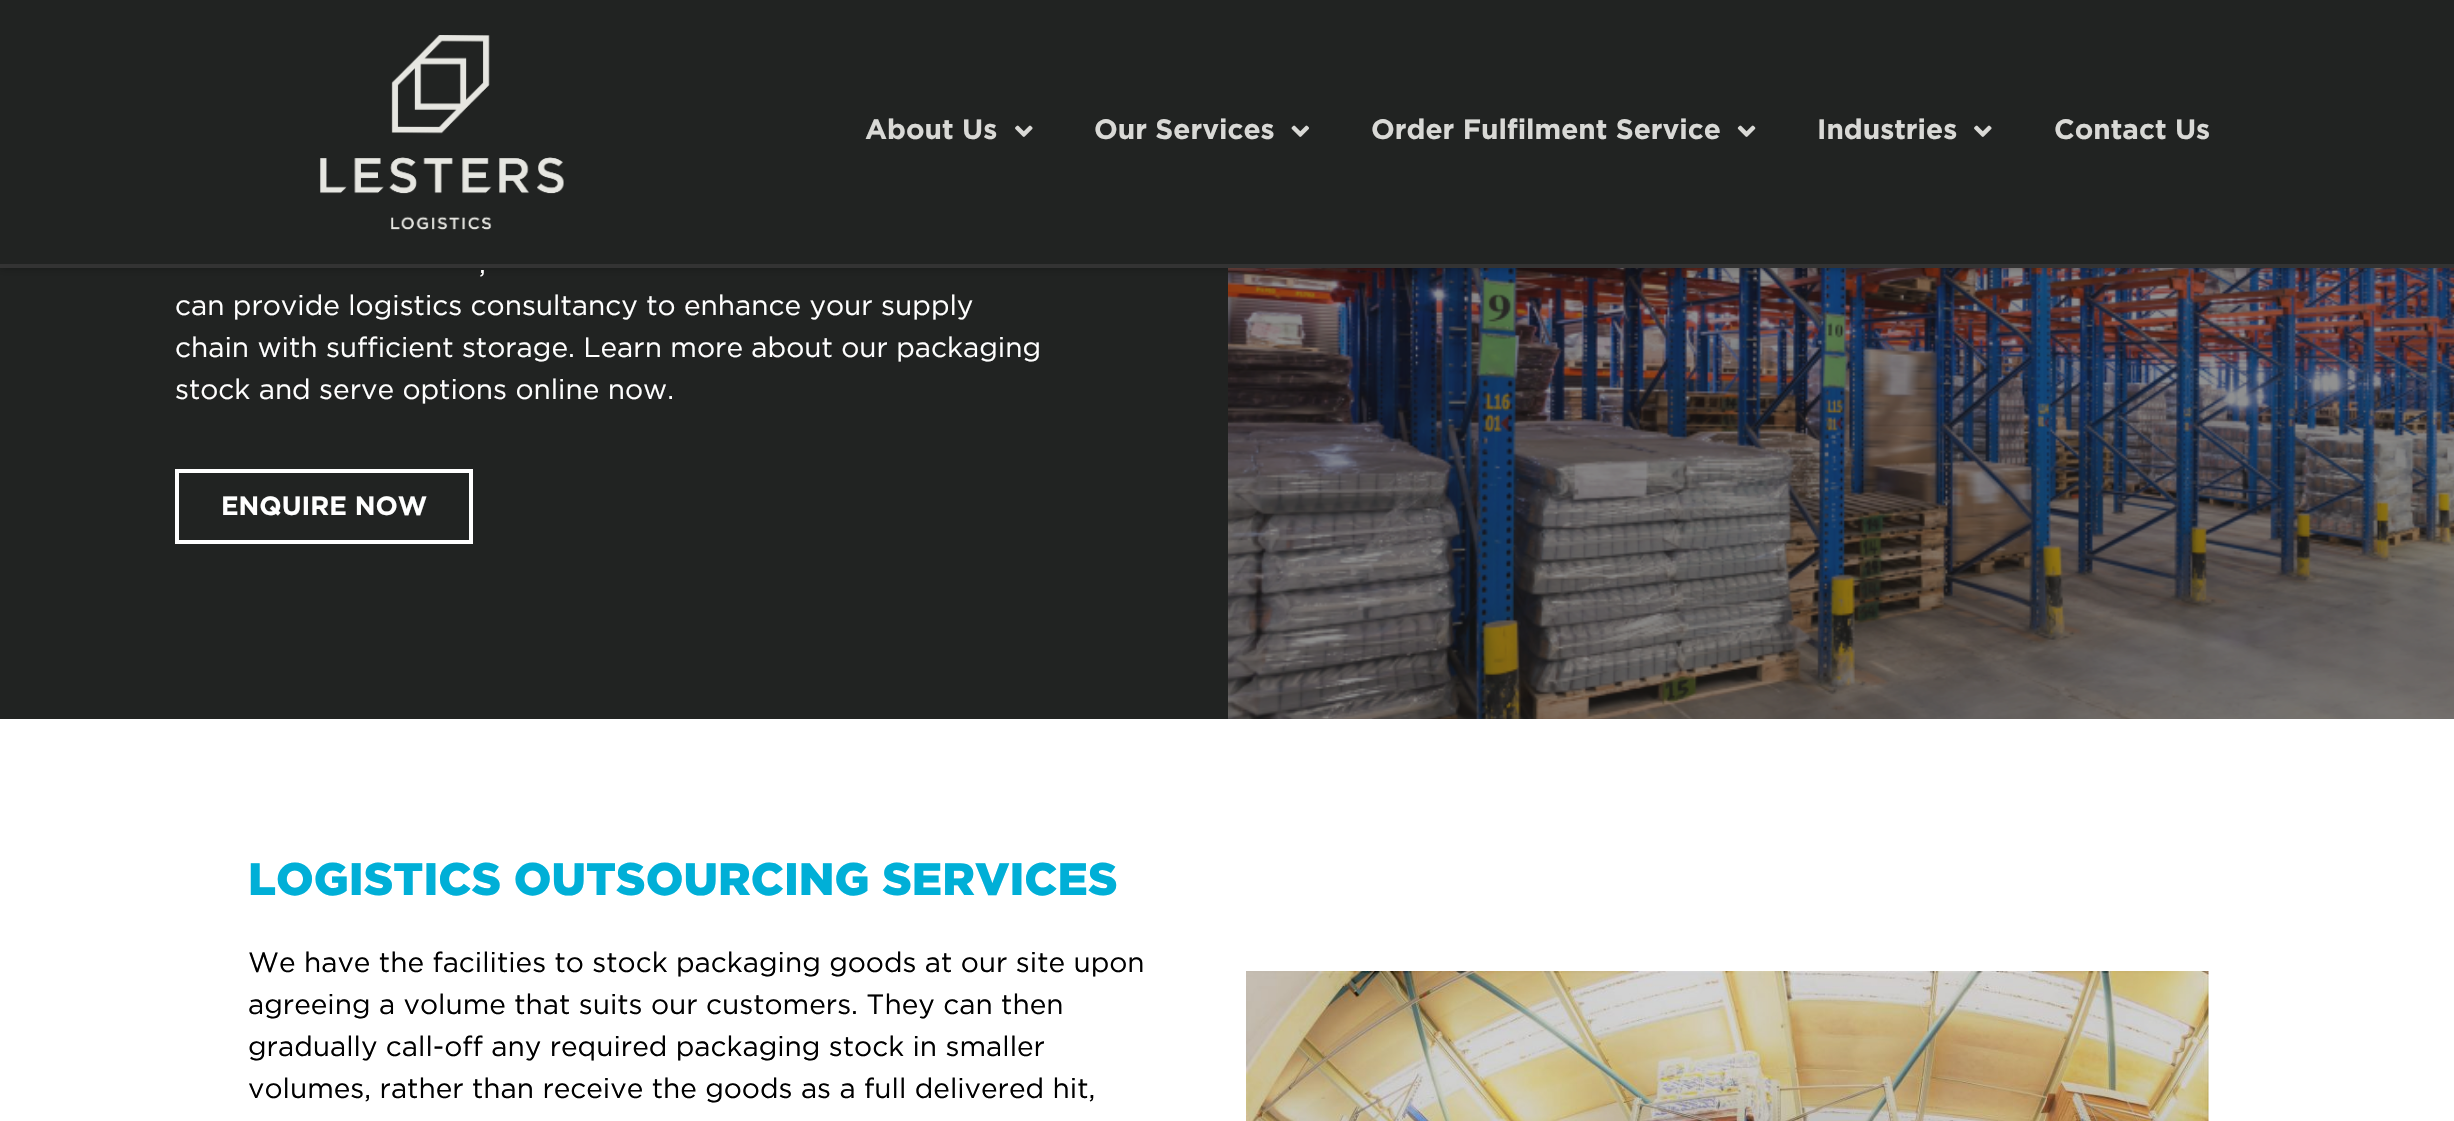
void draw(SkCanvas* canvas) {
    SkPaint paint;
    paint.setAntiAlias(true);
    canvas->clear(0xFFFFFFFF);
    paint.setColor(0xFF212322);
    canvas->drawRect(SkRect::MakeXYWH(0, 268, 1229, 451), paint);
    canvas->drawImageRect(SkImages::DeferredFromEncodedData(SkData::MakeFromFileName("img5.png")), SkRect::MakeXYWH(1228, 268, 1226, 451), SkSamplingOptions());
    paint.setColor(0x4D000000);
    paint.setMaskFilter(SkMaskFilter::MakeBlur(kNormal_SkBlurStyle, 4.5f));
    canvas->drawRect(SkRect::MakeXYWH(0, 0, 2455, 268), paint);
    paint.setMaskFilter(nullptr);
    paint.setColor(0xFF212322);
    canvas->drawRect(SkRect::MakeXYWH(0, 0, 2454, 264), paint);
    paint.setColor(0xFF333333);
    canvas->drawRect(SkRect::MakeXYWH(0, 264, 2454, 4), paint);
    canvas->drawImageRect(SkImages::DeferredFromEncodedData(SkData::MakeFromFileName("img1.png")), SkRect::MakeXYWH(320, 35, 244, 195), SkSamplingOptions());
    SkFont font1(fontMgr->matchFamilyStyle("Gotham", SkFontStyle::Bold()), 28);
    font1.setSubpixel(true);
    paint.setColor(0xFFD9D9D6);
    canvas->drawString("About Us", 865, 139, font1, paint);
    canvas->drawImageRect(SkImages::DeferredFromEncodedData(SkData::MakeFromFileName("img2.png")), SkRect::MakeXYWH(1015, 125, 18, 12), SkSamplingOptions());
    canvas->drawString("Our Services", 1094, 139, font1, paint);
    canvas->drawImageRect(SkImages::DeferredFromEncodedData(SkData::MakeFromFileName("img3.png")), SkRect::MakeXYWH(1291, 125, 18, 12), SkSamplingOptions());
    canvas->drawString("Order Fulfilment Service", 1371, 139, font1, paint);
    canvas->drawImageRect(SkImages::DeferredFromEncodedData(SkData::MakeFromFileName("img4.png")), SkRect::MakeXYWH(1737, 125, 19, 12), SkSamplingOptions());
    canvas->drawString("Industries", 1817, 139, font1, paint);
    canvas->drawImageRect(SkImages::DeferredFromEncodedData(SkData::MakeFromFileName("img2.png")), SkRect::MakeXYWH(1974, 125, 18, 12), SkSamplingOptions());
    canvas->drawString("Contact Us", 2054, 139, font1, paint);
    SkFont font2(fontMgr->matchFamilyStyle("Gotham", SkFontStyle::Normal()), 28);
    font2.setSubpixel(true);
    paint.setColor(0xFFFFFFFF);
    canvas->drawString(",", 479, 273, font2, paint);
    canvas->drawString("can provide logistics consultancy to enhance your supply", 175, 315, font2, paint);
    canvas->drawString("chain with sufficient storage. Learn more about our packaging", 175, 357, font2, paint);
    canvas->drawString("stock and serve options online now.", 175, 399, font2, paint);
    paint.setStyle(SkPaint::kStroke_Style);
    paint.setStrokeWidth(4);
    canvas->drawRect(SkRect::MakeXYWH(177, 471, 294, 71), paint);
    SkFont font3(fontMgr->matchFamilyStyle("Gotham", SkFontStyle::Bold()), 26.25f);
    font3.setSubpixel(true);
    paint.setStyle(SkPaint::kFill_Style);
    canvas->drawString("ENQUIRE NOW", 221, 515, font3, paint);
    SkFont font4(fontMgr->matchFamilyStyle("Gotham", SkFontStyle(900, SkFontStyle::kNormal_Width, SkFontStyle::kUpright_Slant)), 45.5f);
    font4.setSubpixel(true);
    paint.setColor(0xFF00AFD7);
    canvas->drawString("LOGISTICS OUTSOURCING SERVICES", 248, 895, font4, paint);
    paint.setColor(0xFF000000);
    canvas->drawString("We have the facilities to stock packaging goods at our site upon", 248, 972, font2, paint);
    canvas->drawString("agreeing a volume that suits our customers. They can then", 248, 1014, font2, paint);
    canvas->drawString("gradually call-off any required packaging stock in smaller", 248, 1056, font2, paint);
    canvas->drawString("volumes, rather than receive the goods as a full delivered hit,", 248, 1098, font2, paint);
    canvas->drawImageRect(SkImages::DeferredFromEncodedData(SkData::MakeFromFileName("img6.png")), SkRect::MakeXYWH(1246, 971, 963, 150), SkSamplingOptions());
}
